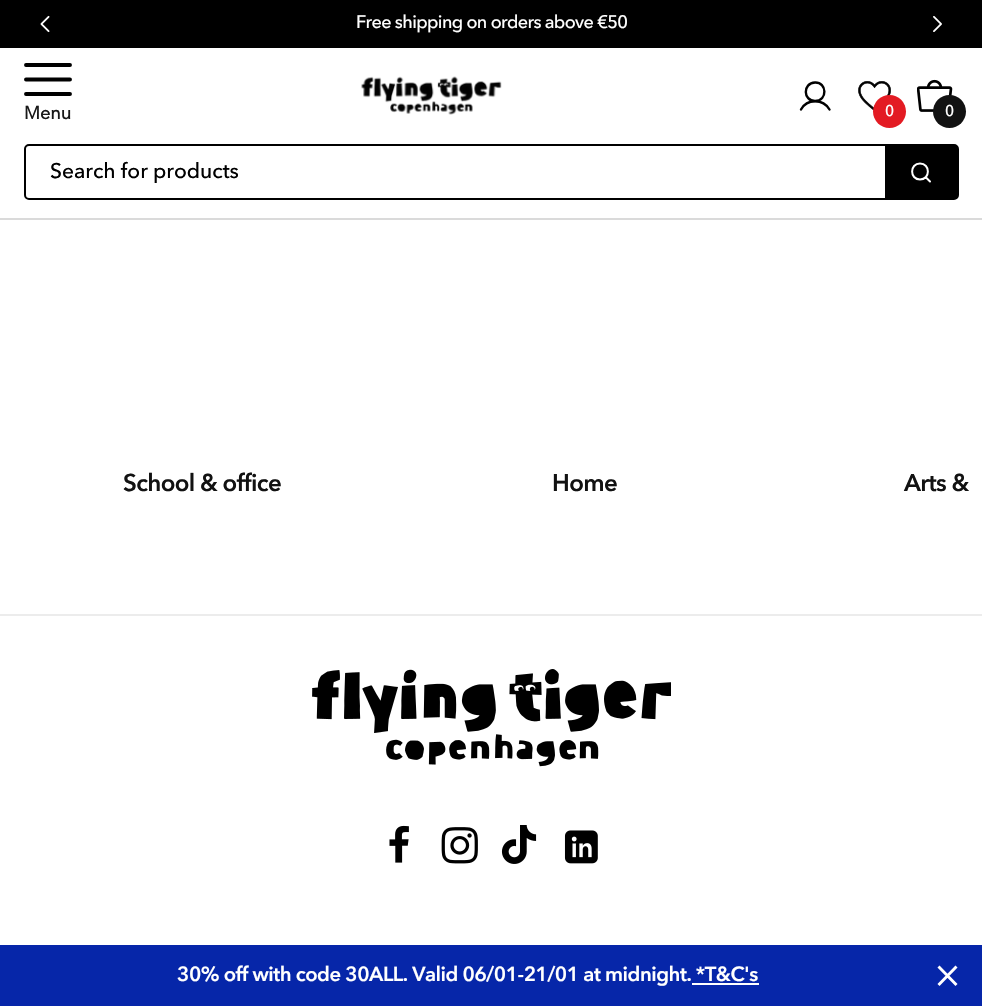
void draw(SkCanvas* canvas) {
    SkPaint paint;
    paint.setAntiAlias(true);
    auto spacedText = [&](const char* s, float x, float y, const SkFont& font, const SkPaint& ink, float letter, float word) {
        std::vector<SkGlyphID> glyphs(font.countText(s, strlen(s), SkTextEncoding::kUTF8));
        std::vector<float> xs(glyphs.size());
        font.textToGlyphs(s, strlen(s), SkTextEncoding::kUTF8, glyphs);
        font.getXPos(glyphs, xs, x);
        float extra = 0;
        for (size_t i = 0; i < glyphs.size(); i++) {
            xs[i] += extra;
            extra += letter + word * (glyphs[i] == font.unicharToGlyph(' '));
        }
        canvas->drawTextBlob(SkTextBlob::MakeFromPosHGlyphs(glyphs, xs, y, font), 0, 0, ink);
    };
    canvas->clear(0xFFFFFFFF);
    paint.setColor(0xFF000000);
    canvas->drawRect(SkRect::MakeXYWH(0, 0, 982, 48), paint);
    SkFont font1(fontMgr->matchFamilyStyle("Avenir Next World", SkFontStyle(500, SkFontStyle::kNormal_Width, SkFontStyle::kUpright_Slant)), 18);
    font1.setSubpixel(true);
    paint.setColor(0xFFFFFFFF);
    spacedText("Free shipping on orders above €50", 356, 28, font1, paint, -0.6f, 0);
    canvas->drawImageRect(SkImages::DeferredFromEncodedData(SkData::MakeFromFileName("img1.png")), SkRect::MakeXYWH(40, 15, 10, 18), SkSamplingOptions());
    canvas->drawImageRect(SkImages::DeferredFromEncodedData(SkData::MakeFromFileName("img2.png")), SkRect::MakeXYWH(933, 16, 9, 16), SkSamplingOptions());
    paint.setColor(0xFFDADADA);
    canvas->drawRect(SkRect::MakeXYWH(0, 218, 982, 2), paint);
    paint.setStyle(SkPaint::kStroke_Style);
    paint.setStrokeWidth(3.9f);
    paint.setStrokeCap(SkPaint::kRound_Cap);
    paint.setColor(0xFF000000);
    canvas->drawPath(SkPathBuilder().moveTo(26, 65).lineTo(70, 65).moveTo(26, 79.5f).lineTo(70, 79.5f).moveTo(26, 94).lineTo(70, 94).detach(), paint);
    SkFont font2(fontMgr->matchFamilyStyle("Avenir Next World", SkFontStyle::Bold()), 18);
    font2.setSubpixel(true);
    paint.setStyle(SkPaint::kFill_Style);
    paint.setColor(0xFF191919);
    canvas->drawString("Menu", 24, 119, font2, paint);
    canvas->drawImageRect(SkImages::DeferredFromEncodedData(SkData::MakeFromFileName("img3.png")), SkRect::MakeXYWH(361, 76, 141, 39), SkSamplingOptions());
    paint.setStyle(SkPaint::kStroke_Style);
    paint.setStrokeWidth(2.4f);
    paint.setStrokeCap(SkPaint::kButt_Cap);
    paint.setColor(0xFF000000);
    canvas->drawPath(SkPathBuilder().moveTo(815, 101).cubicTo(828, 101, 827, 82, 815, 82.5f).cubicTo(802.5f, 83, 803, 101, 815, 101).close().detach(), paint);
    paint.setStrokeCap(SkPaint::kRound_Cap);
    paint.setStrokeJoin(SkPaint::kRound_Join);
    canvas->drawPath(SkPathBuilder().moveTo(801, 109.5f).cubicTo(807, 98.5f, 823, 98.5f, 829.5f, 109.5f).detach(), paint);
    canvas->drawImageRect(SkImages::DeferredFromEncodedData(SkData::MakeFromFileName("img4.png")), SkRect::MakeXYWH(858, 81, 33, 30), SkSamplingOptions());
    paint.setStyle(SkPaint::kFill_Style);
    paint.setColor(0xFFE31B23);
    canvas->drawCircle(889.5f, 111.5f, 16.5f, paint);
    SkFont font3(fontMgr->matchFamilyStyle("Avenir Next World", SkFontStyle::Bold()), 15);
    font3.setSubpixel(true);
    paint.setColor(0xFFFFFFFF);
    canvas->drawString("0", 885, 116, font3, paint);
    canvas->drawImageRect(SkImages::DeferredFromEncodedData(SkData::MakeFromFileName("img5.png")), SkRect::MakeXYWH(917, 79, 36, 33), SkSamplingOptions());
    paint.setColor(0xFF121212);
    canvas->drawCircle(949.5f, 111.5f, 16.5f, paint);
    paint.setColor(0xFFFFFFFF);
    canvas->drawString("0", 945, 116, font3, paint);
    paint.setStyle(SkPaint::kStroke_Style);
    paint.setStrokeWidth(2);
    paint.setStrokeCap(SkPaint::kButt_Cap);
    paint.setStrokeJoin(SkPaint::kMiter_Join);
    paint.setColor(0xFF000000);
    canvas->drawRoundRect(SkRect::MakeXYWH(25, 145, 933, 54), 4, 4, paint);
    SkFont font4(fontMgr->matchFamilyStyle("Avenir Next World", SkFontStyle(500, SkFontStyle::kNormal_Width, SkFontStyle::kUpright_Slant)), 21);
    font4.setSubpixel(true);
    paint.setStyle(SkPaint::kFill_Style);
    canvas->drawString("Search for products", 50, 178, font4, paint);
    canvas->drawRect(SkRect::MakeXYWH(885, 146, 72, 52), paint);
    paint.setStyle(SkPaint::kStroke_Style);
    paint.setStrokeCap(SkPaint::kRound_Cap);
    paint.setStrokeJoin(SkPaint::kRound_Join);
    paint.setColor(0xFFFFFFFF);
    canvas->drawPath(SkPathBuilder().moveTo(920, 179.5f).cubicTo(930.5f, 179.5f, 930.5f, 163.5f, 920, 163.5f).cubicTo(909.5f, 163.5f, 909.5f, 179.5f, 920, 179.5f).close().moveTo(930, 181.5f).lineTo(925.5f, 177).detach(), paint);
    SkFont font5(fontMgr->matchFamilyStyle("Avenir Next World", SkFontStyle(600, SkFontStyle::kNormal_Width, SkFontStyle::kUpright_Slant)), 24);
    font5.setSubpixel(true);
    paint.setStyle(SkPaint::kFill_Style);
    paint.setColor(0xFF121212);
    spacedText("School & office", 123, 491, font5, paint, -0.6f, 0);
    spacedText("Home", 552, 491, font5, paint, -0.6f, 0);
    spacedText("Arts &", 904, 491, font5, paint, -0.6f, 0);
    paint.setColor(0xFFECECEC);
    canvas->drawRect(SkRect::MakeXYWH(0, 614, 982, 2), paint);
    canvas->drawImageRect(SkImages::DeferredFromEncodedData(SkData::MakeFromFileName("img6.png")), SkRect::MakeXYWH(312, 669, 359, 98), SkSamplingOptions());
    canvas->drawImageRect(SkImages::DeferredFromEncodedData(SkData::MakeFromFileName("img7.png")), SkRect::MakeXYWH(389, 825, 20, 38), SkSamplingOptions());
    canvas->drawImageRect(SkImages::DeferredFromEncodedData(SkData::MakeFromFileName("img8.png")), SkRect::MakeXYWH(441, 827, 37, 37), SkSamplingOptions());
    canvas->drawImageRect(SkImages::DeferredFromEncodedData(SkData::MakeFromFileName("img9.png")), SkRect::MakeXYWH(501, 825, 36, 39), SkSamplingOptions());
    canvas->drawImageRect(SkImages::DeferredFromEncodedData(SkData::MakeFromFileName("img10.png")), SkRect::MakeXYWH(564, 830, 34, 34), SkSamplingOptions());
    paint.setColor(0xFF0626A9);
    canvas->drawRect(SkRect::MakeXYWH(0, 945, 982, 61), paint);
    SkFont font6(fontMgr->matchFamilyStyle("Avenir Next World", SkFontStyle(600, SkFontStyle::kNormal_Width, SkFontStyle::kUpright_Slant)), 20.25f);
    font6.setSubpixel(true);
    paint.setColor(0xFFFFFFFF);
    spacedText("30% off with code 30ALL. Valid 06/01-21/01 at midnight. *T&C's", 177, 981, font6, paint, -0.45f, 0);
    canvas->drawRect(SkRect::MakeXYWH(692, 983, 67, 2), paint);
    paint.setStyle(SkPaint::kStroke_Style);
    paint.setStrokeWidth(2.9f);
    paint.setStrokeCap(SkPaint::kButt_Cap);
    paint.setStrokeJoin(SkPaint::kMiter_Join);
    canvas->drawPath(SkPathBuilder().moveTo(938.5f, 985).lineTo(956.5f, 966.5f).moveTo(938.5f, 966.5f).lineTo(956.5f, 985).detach(), paint);
}
